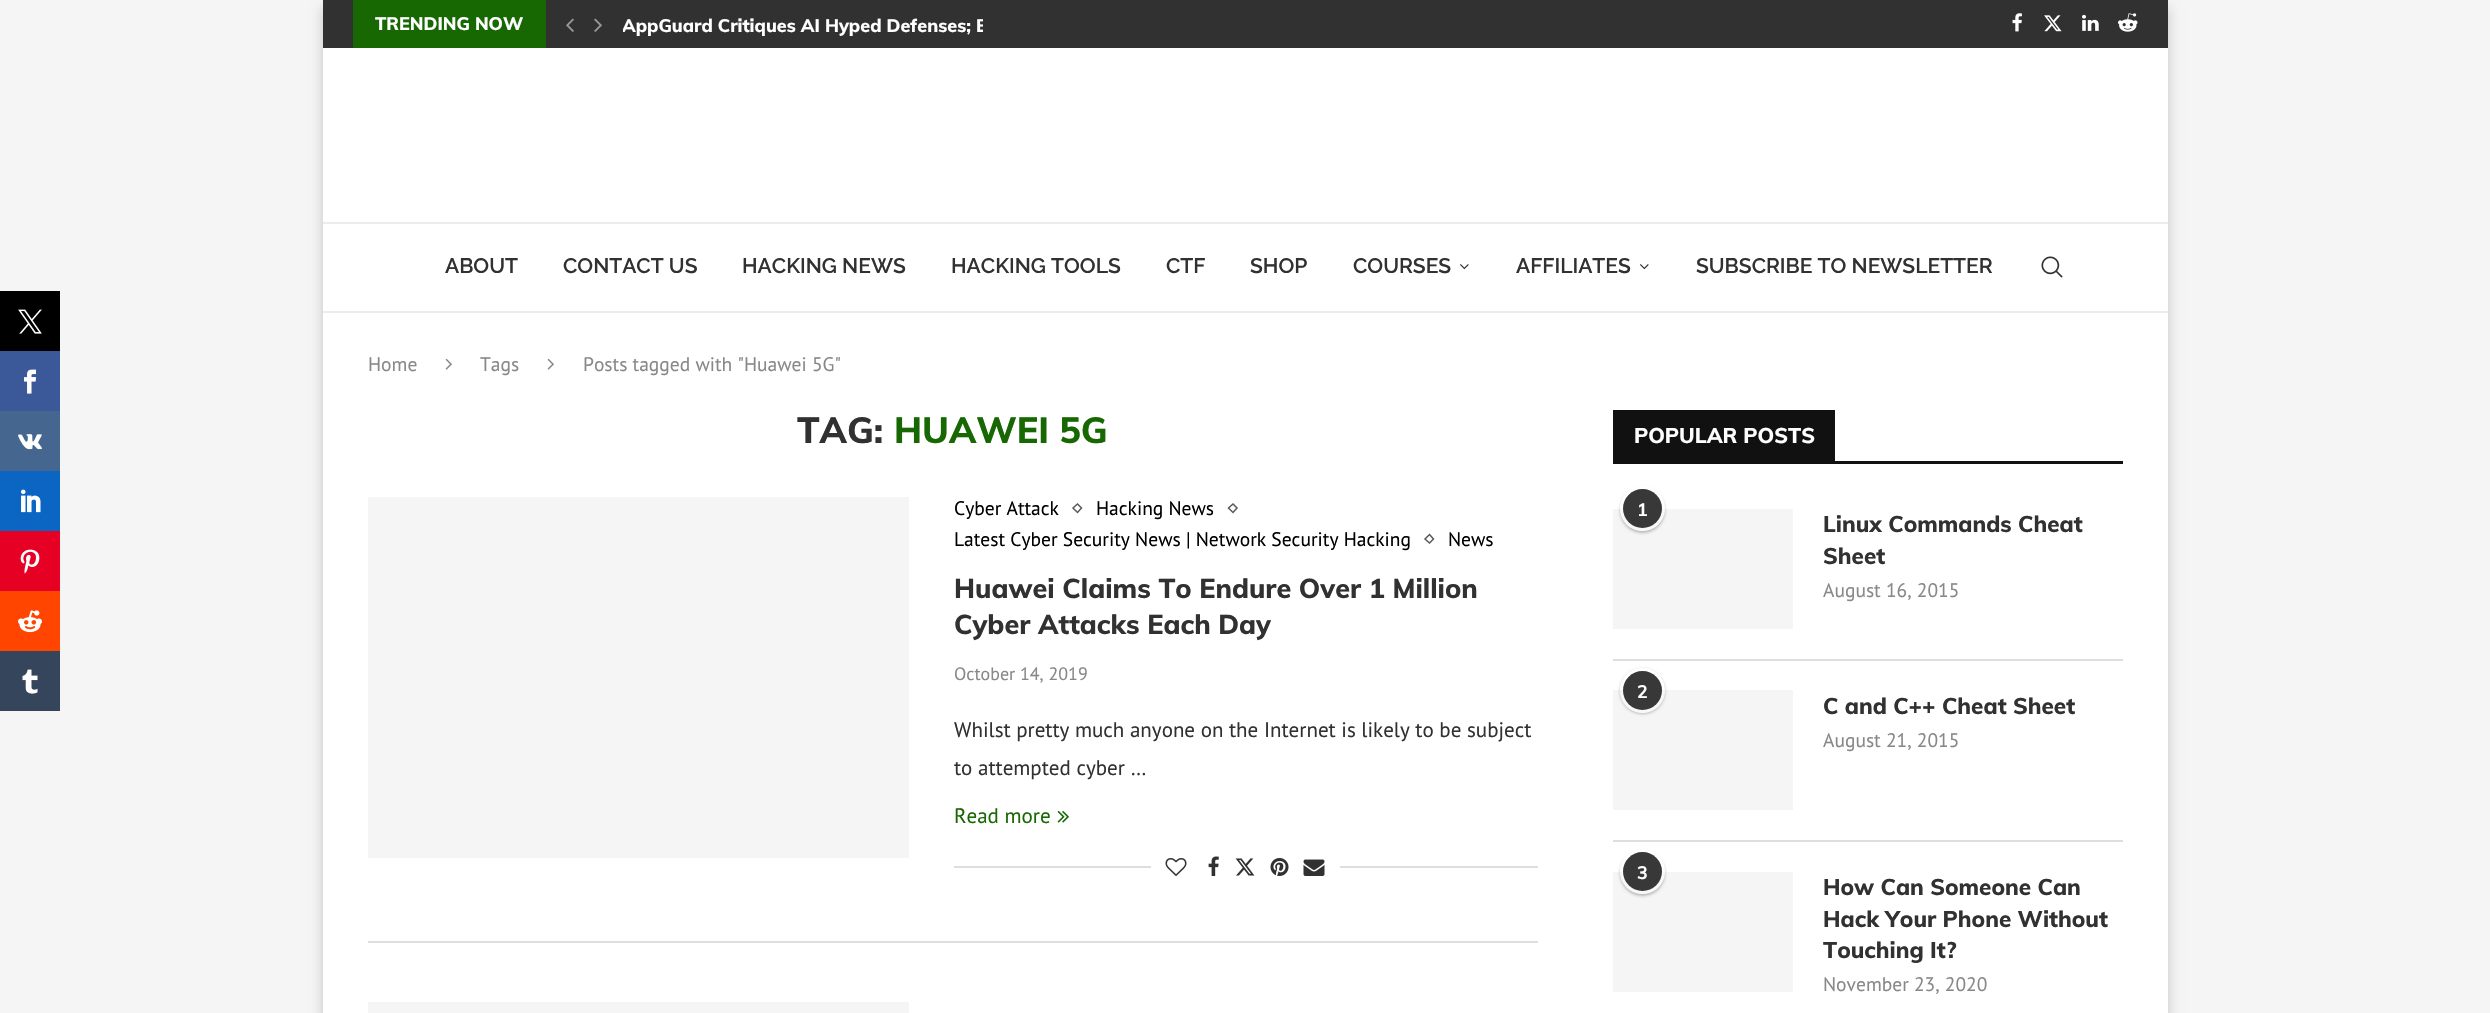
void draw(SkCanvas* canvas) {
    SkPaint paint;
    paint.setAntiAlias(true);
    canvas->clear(0xFFF5F5F5);
    paint.setColor(0xFF000000);
    canvas->drawRect(SkRect::MakeXYWH(0, 291, 60, 60), paint);
    canvas->drawImageRect(SkImages::DeferredFromEncodedData(SkData::MakeFromFileName("img1.png")), SkRect::MakeXYWH(18, 309, 24, 25), SkSamplingOptions());
    paint.setColor(0xFF3B5998);
    canvas->drawRect(SkRect::MakeXYWH(0, 351, 60, 60), paint);
    canvas->drawImageRect(SkImages::DeferredFromEncodedData(SkData::MakeFromFileName("img2.png")), SkRect::MakeXYWH(24, 369, 13, 25), SkSamplingOptions());
    paint.setColor(0xFF45668E);
    canvas->drawRect(SkRect::MakeXYWH(0, 411, 60, 60), paint);
    canvas->drawImageRect(SkImages::DeferredFromEncodedData(SkData::MakeFromFileName("img3.png")), SkRect::MakeXYWH(18, 434, 24, 16), SkSamplingOptions());
    paint.setColor(0xFF0A66C2);
    canvas->drawRect(SkRect::MakeXYWH(0, 471, 60, 60), paint);
    canvas->drawImageRect(SkImages::DeferredFromEncodedData(SkData::MakeFromFileName("img4.png")), SkRect::MakeXYWH(21, 489, 20, 24), SkSamplingOptions());
    paint.setColor(0xFFE60023);
    canvas->drawRect(SkRect::MakeXYWH(0, 531, 60, 60), paint);
    canvas->drawImageRect(SkImages::DeferredFromEncodedData(SkData::MakeFromFileName("img5.png")), SkRect::MakeXYWH(20, 549, 20, 25), SkSamplingOptions());
    paint.setColor(0xFFFF4500);
    canvas->drawRect(SkRect::MakeXYWH(0, 591, 60, 60), paint);
    canvas->drawImageRect(SkImages::DeferredFromEncodedData(SkData::MakeFromFileName("img6.png")), SkRect::MakeXYWH(18, 610, 24, 23), SkSamplingOptions());
    paint.setColor(0xFF35465C);
    canvas->drawRect(SkRect::MakeXYWH(0, 651, 60, 60), paint);
    canvas->drawImageRect(SkImages::DeferredFromEncodedData(SkData::MakeFromFileName("img7.png")), SkRect::MakeXYWH(22, 669, 16, 25), SkSamplingOptions());
    paint.setColor(0x33000000);
    paint.setMaskFilter(SkMaskFilter::MakeBlur(kNormal_SkBlurStyle, 6));
    canvas->drawRect(SkRect::MakeXYWH(323, 8, 1845, 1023), paint);
    paint.setMaskFilter(nullptr);
    paint.setColor(0xFFFFFFFF);
    canvas->drawRect(SkRect::MakeXYWH(323, 48, 1845, 965), paint);
    paint.setColor(0xFF313131);
    canvas->drawRect(SkRect::MakeXYWH(323, 0, 1845, 48), paint);
    paint.setColor(0xFF176802);
    canvas->drawRect(SkRect::MakeXYWH(353, 0, 193, 48), paint);
    SkFont font1(fontMgr->matchFamilyStyle("Muli", SkFontStyle(800, SkFontStyle::kNormal_Width, SkFontStyle::kUpright_Slant)), 18);
    font1.setSubpixel(true);
    paint.setColor(0xFFFFFFFF);
    canvas->drawString("TRENDING NOW", 375, 30, font1, paint);
    canvas->drawImageRect(SkImages::DeferredFromEncodedData(SkData::MakeFromFileName("img8.png")), SkRect::MakeXYWH(566, 18, 8, 14), SkSamplingOptions());
    canvas->drawImageRect(SkImages::DeferredFromEncodedData(SkData::MakeFromFileName("img9.png")), SkRect::MakeXYWH(594, 18, 8, 14), SkSamplingOptions());
    canvas->save();
    canvas->clipRect(SkRect::MakeXYWH(623, 0, 360, 48));
    canvas->drawString("AppGuard Critiques AI Hyped Defenses; E", 622, 32, font1, paint);
    canvas->restore();
    canvas->drawImageRect(SkImages::DeferredFromEncodedData(SkData::MakeFromFileName("img10.png")), SkRect::MakeXYWH(2012, 13, 10, 19), SkSamplingOptions());
    canvas->drawImageRect(SkImages::DeferredFromEncodedData(SkData::MakeFromFileName("img11.png")), SkRect::MakeXYWH(2044, 15, 18, 17), SkSamplingOptions());
    canvas->drawImageRect(SkImages::DeferredFromEncodedData(SkData::MakeFromFileName("img12.png")), SkRect::MakeXYWH(2082, 14, 17, 17), SkSamplingOptions());
    canvas->drawImageRect(SkImages::DeferredFromEncodedData(SkData::MakeFromFileName("img13.png")), SkRect::MakeXYWH(2118, 13, 20, 19), SkSamplingOptions());
    paint.setColor(0xFFECECEC);
    canvas->drawRect(SkRect::MakeXYWH(323, 222, 1845, 2), paint);
    canvas->drawRect(SkRect::MakeXYWH(323, 311, 1845, 2), paint);
    SkFont font2(fontMgr->matchFamilyStyle("Raleway", SkFontStyle(600, SkFontStyle::kNormal_Width, SkFontStyle::kUpright_Slant)), 21);
    font2.setSubpixel(true);
    paint.setColor(0xFF313131);
    canvas->drawString("ABOUT", 445, 273, font2, paint);
    canvas->drawString("CONTACT US", 563, 273, font2, paint);
    canvas->drawString("HACKING NEWS", 742, 273, font2, paint);
    canvas->drawString("HACKING TOOLS", 951, 273, font2, paint);
    canvas->drawString("CTF", 1166, 273, font2, paint);
    canvas->drawString("SHOP", 1250, 273, font2, paint);
    canvas->drawString("COURSES", 1353, 273, font2, paint);
    canvas->drawImageRect(SkImages::DeferredFromEncodedData(SkData::MakeFromFileName("img14.png")), SkRect::MakeXYWH(1460, 264, 9, 6), SkSamplingOptions());
    canvas->drawString("AFFILIATES", 1516, 273, font2, paint);
    canvas->drawImageRect(SkImages::DeferredFromEncodedData(SkData::MakeFromFileName("img15.png")), SkRect::MakeXYWH(1640, 264, 9, 6), SkSamplingOptions());
    canvas->drawString("SUBSCRIBE TO NEWSLETTER", 1696, 273, font2, paint);
    canvas->drawImageRect(SkImages::DeferredFromEncodedData(SkData::MakeFromFileName("img16.png")), SkRect::MakeXYWH(2041, 256, 22, 22), SkSamplingOptions());
    SkFont font3(fontMgr->matchFamilyStyle("PT Sans", SkFontStyle::Normal()), 19.5f);
    font3.setSubpixel(true);
    paint.setColor(0xFF888888);
    canvas->drawString("Home", 368, 371, font3, paint);
    canvas->drawImageRect(SkImages::DeferredFromEncodedData(SkData::MakeFromFileName("img17.png")), SkRect::MakeXYWH(445, 358, 7, 12), SkSamplingOptions());
    canvas->drawString("Tags", 480, 371, font3, paint);
    canvas->drawImageRect(SkImages::DeferredFromEncodedData(SkData::MakeFromFileName("img17.png")), SkRect::MakeXYWH(547, 358, 7, 12), SkSamplingOptions());
    canvas->drawString("Posts tagged with \"Huawei 5G\"", 583, 371, font3, paint);
    SkFont font4(fontMgr->matchFamilyStyle("Muli", SkFontStyle(800, SkFontStyle::kNormal_Width, SkFontStyle::kUpright_Slant)), 36);
    font4.setSubpixel(true);
    paint.setColor(0xFF313131);
    canvas->drawString("TAG:", 797, 443, font4, paint);
    paint.setColor(0xFF176802);
    canvas->drawString("HUAWEI 5G", 894, 443, font4, paint);
    paint.setColor(0xFFDEDEDE);
    canvas->drawRect(SkRect::MakeXYWH(368, 941, 1170, 2), paint);
    paint.setColor(0xFFF5F5F5);
    canvas->drawRect(SkRect::MakeXYWH(368, 497, 541, 361), paint);
    paint.setColor(0xFF000000);
    canvas->drawString("Cyber Attack", 954, 515, font3, paint);
    paint.setStyle(SkPaint::kStroke_Style);
    paint.setStrokeWidth(1.5f);
    paint.setColor(0xFF595959);
    canvas->drawPath(SkPathBuilder().moveTo(1077.5f, 504).lineTo(1081.5f, 508).lineTo(1077.5f, 512.5f).lineTo(1073, 508).close().detach(), paint);
    paint.setStyle(SkPaint::kFill_Style);
    paint.setColor(0xFF000000);
    canvas->drawString("Hacking News", 1096, 515, font3, paint);
    paint.setStyle(SkPaint::kStroke_Style);
    paint.setColor(0xFF595959);
    canvas->drawPath(SkPathBuilder().moveTo(1233, 504).lineTo(1237, 508).lineTo(1233, 512.5f).lineTo(1228.5f, 508).close().detach(), paint);
    paint.setStyle(SkPaint::kFill_Style);
    paint.setColor(0xFF000000);
    canvas->drawString("Latest Cyber Security News | Network Security Hacking", 954, 546, font3, paint);
    paint.setStyle(SkPaint::kStroke_Style);
    paint.setColor(0xFF595959);
    canvas->drawPath(SkPathBuilder().moveTo(1429.5f, 534.5f).lineTo(1433.5f, 539).lineTo(1429.5f, 543).lineTo(1425, 539).close().detach(), paint);
    paint.setStyle(SkPaint::kFill_Style);
    paint.setColor(0xFF000000);
    canvas->drawString("News", 1448, 546, font3, paint);
    SkFont font5(fontMgr->matchFamilyStyle("Muli", SkFontStyle(800, SkFontStyle::kNormal_Width, SkFontStyle::kUpright_Slant)), 27);
    font5.setSubpixel(true);
    paint.setColor(0xFF313131);
    canvas->drawString("Huawei Claims To Endure Over 1 Million", 954, 598, font5, paint);
    canvas->drawString("Cyber Attacks Each Day", 954, 634, font5, paint);
    SkFont font6(fontMgr->matchFamilyStyle("PT Sans", SkFontStyle::Normal()), 18);
    font6.setSubpixel(true);
    paint.setColor(0xFF888888);
    canvas->drawString("October 14, 2019", 954, 680, font6, paint);
    SkFont font7(fontMgr->matchFamilyStyle("PT Sans", SkFontStyle::Normal()), 21);
    font7.setSubpixel(true);
    paint.setColor(0xFF313131);
    canvas->drawString("Whilst pretty much anyone on the Internet is likely to be subject", 954, 737, font7, paint);
    canvas->drawString("to attempted cyber …", 954, 775, font7, paint);
    paint.setColor(0xFF176802);
    canvas->drawString("Read more", 954, 823, font7, paint);
    canvas->drawImageRect(SkImages::DeferredFromEncodedData(SkData::MakeFromFileName("img18.png")), SkRect::MakeXYWH(1057, 811, 12, 12), SkSamplingOptions());
    paint.setColor(0xFFDEDEDE);
    canvas->drawRect(SkRect::MakeXYWH(954, 866, 584, 2), paint);
    paint.setColor(0xFFFFFFFF);
    canvas->drawRect(SkRect::MakeXYWH(1151, 866, 189, 2), paint);
    canvas->drawImageRect(SkImages::DeferredFromEncodedData(SkData::MakeFromFileName("img19.png")), SkRect::MakeXYWH(1165, 858, 22, 18), SkSamplingOptions());
    canvas->drawImageRect(SkImages::DeferredFromEncodedData(SkData::MakeFromFileName("img20.png")), SkRect::MakeXYWH(1208, 856, 11, 20), SkSamplingOptions());
    canvas->drawImageRect(SkImages::DeferredFromEncodedData(SkData::MakeFromFileName("img21.png")), SkRect::MakeXYWH(1235, 858, 20, 18), SkSamplingOptions());
    canvas->drawImageRect(SkImages::DeferredFromEncodedData(SkData::MakeFromFileName("img22.png")), SkRect::MakeXYWH(1270, 858, 19, 18), SkSamplingOptions());
    canvas->drawImageRect(SkImages::DeferredFromEncodedData(SkData::MakeFromFileName("img23.png")), SkRect::MakeXYWH(1303, 859, 22, 17), SkSamplingOptions());
    paint.setColor(0xFFF5F5F5);
    canvas->drawRect(SkRect::MakeXYWH(368, 1002, 541, 11), paint);
    paint.setColor(0xFF111111);
    canvas->drawRect(SkRect::MakeXYWH(1613, 461, 510, 3), paint);
    canvas->drawRect(SkRect::MakeXYWH(1616, 412, 217, 49), paint);
    canvas->drawRect(SkRect::MakeXYWH(1613, 410, 222, 2), paint);
    canvas->drawRect(SkRect::MakeXYWH(1833, 410, 2, 54), paint);
    canvas->drawRect(SkRect::MakeXYWH(1613, 410, 3, 54), paint);
    SkFont font8(fontMgr->matchFamilyStyle("Muli", SkFontStyle(800, SkFontStyle::kNormal_Width, SkFontStyle::kUpright_Slant)), 21);
    font8.setSubpixel(true);
    paint.setColor(0xFFFFFFFF);
    canvas->drawString("POPULAR POSTS", 1634, 443, font8, paint);
    paint.setColor(0xFFDEDEDE);
    canvas->drawRect(SkRect::MakeXYWH(1613, 659, 510, 2), paint);
    paint.setColor(0xFFF5F5F5);
    canvas->drawRect(SkRect::MakeXYWH(1613, 509, 180, 120), paint);
    canvas->save();
    canvas->clipPath(SkPathBuilder(SkPathFillType::kEvenOdd).moveTo(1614, 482).lineTo(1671, 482).lineTo(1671, 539).lineTo(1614, 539).close().moveTo(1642.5f, 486).cubicTo(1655, 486, 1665, 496, 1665, 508.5f).cubicTo(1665, 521, 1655, 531, 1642.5f, 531).cubicTo(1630, 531, 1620, 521, 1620, 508.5f).cubicTo(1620, 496, 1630, 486, 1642.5f, 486).close().detach(), true);
    paint.setColor(0x40000000);
    paint.setMaskFilter(SkMaskFilter::MakeBlur(kNormal_SkBlurStyle, 1.5f));
    canvas->drawRoundRect(SkRect::MakeXYWH(1620, 488, 45, 45), 22.5f, 22.5f, paint);
    paint.setMaskFilter(nullptr);
    canvas->restore();
    paint.setColor(0x4DFFFFFF);
    canvas->drawCircle(1642.5f, 508.5f, 22.5f, paint);
    paint.setColor(0xFF383838);
    canvas->drawCircle(1642.5f, 508.5f, 19.5f, paint);
    SkFont font9(fontMgr->matchFamilyStyle("Muli", SkFontStyle::Bold()), 18);
    font9.setSubpixel(true);
    paint.setColor(0xFFFFFFFF);
    canvas->drawString("1", 1637, 516, font9, paint);
    SkFont font10(fontMgr->matchFamilyStyle("Muli", SkFontStyle(800, SkFontStyle::kNormal_Width, SkFontStyle::kUpright_Slant)), 22.5f);
    font10.setSubpixel(true);
    paint.setColor(0xFF313131);
    canvas->drawString("Linux Commands Cheat", 1823, 532, font10, paint);
    canvas->drawString("Sheet", 1823, 564, font10, paint);
    paint.setColor(0xFF888888);
    canvas->drawString("August 16, 2015", 1823, 597, font3, paint);
    paint.setColor(0xFFDEDEDE);
    canvas->drawRect(SkRect::MakeXYWH(1613, 840, 510, 2), paint);
    paint.setColor(0xFFF5F5F5);
    canvas->drawRect(SkRect::MakeXYWH(1613, 690, 180, 120), paint);
    canvas->save();
    canvas->clipPath(SkPathBuilder(SkPathFillType::kEvenOdd).moveTo(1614, 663).lineTo(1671, 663).lineTo(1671, 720).lineTo(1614, 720).close().moveTo(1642.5f, 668).cubicTo(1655, 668, 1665, 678, 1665, 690.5f).cubicTo(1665, 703, 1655, 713, 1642.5f, 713).cubicTo(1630, 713, 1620, 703, 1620, 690.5f).cubicTo(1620, 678, 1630, 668, 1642.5f, 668).close().detach(), true);
    paint.setColor(0x40000000);
    paint.setMaskFilter(SkMaskFilter::MakeBlur(kNormal_SkBlurStyle, 1.5f));
    canvas->drawRoundRect(SkRect::MakeXYWH(1620, 669, 45, 45), 22.5f, 22.5f, paint);
    paint.setMaskFilter(nullptr);
    canvas->restore();
    paint.setColor(0x4DFFFFFF);
    canvas->drawCircle(1642.5f, 690.5f, 22.5f, paint);
    paint.setColor(0xFF383838);
    canvas->drawCircle(1642.5f, 690.5f, 19.5f, paint);
    paint.setColor(0xFFFFFFFF);
    canvas->drawString("2", 1637, 698, font9, paint);
    paint.setColor(0xFF313131);
    canvas->drawString("C and C++ Cheat Sheet", 1823, 714, font10, paint);
    paint.setColor(0xFF888888);
    canvas->drawString("August 21, 2015", 1823, 747, font3, paint);
    paint.setColor(0xFFF5F5F5);
    canvas->drawRect(SkRect::MakeXYWH(1613, 872, 180, 120), paint);
    canvas->save();
    canvas->clipPath(SkPathBuilder(SkPathFillType::kEvenOdd).moveTo(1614, 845).lineTo(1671, 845).lineTo(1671, 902).lineTo(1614, 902).close().moveTo(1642.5f, 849).cubicTo(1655, 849, 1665, 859, 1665, 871.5f).cubicTo(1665, 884, 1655, 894, 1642.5f, 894).cubicTo(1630, 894, 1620, 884, 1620, 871.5f).cubicTo(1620, 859, 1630, 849, 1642.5f, 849).close().detach(), true);
    paint.setColor(0x40000000);
    paint.setMaskFilter(SkMaskFilter::MakeBlur(kNormal_SkBlurStyle, 1.5f));
    canvas->drawRoundRect(SkRect::MakeXYWH(1620, 851, 45, 45), 22.5f, 22.5f, paint);
    paint.setMaskFilter(nullptr);
    canvas->restore();
    paint.setColor(0x4DFFFFFF);
    canvas->drawCircle(1642.5f, 871.5f, 22.5f, paint);
    paint.setColor(0xFF383838);
    canvas->drawCircle(1642.5f, 871.5f, 19.5f, paint);
    paint.setColor(0xFFFFFFFF);
    canvas->drawString("3", 1637, 879, font9, paint);
    paint.setColor(0xFF313131);
    canvas->drawString("How Can Someone Can", 1823, 895, font10, paint);
    canvas->drawString("Hack Your Phone Without", 1823, 927, font10, paint);
    canvas->save();
    canvas->clipRect(SkRect::MakeXYWH(1823, 872, 300, 124));
    canvas->drawString("Touching It?", 1823, 958, font10, paint);
    canvas->restore();
    paint.setColor(0xFF888888);
    canvas->drawString("November 23, 2020", 1823, 991, font3, paint);
}
